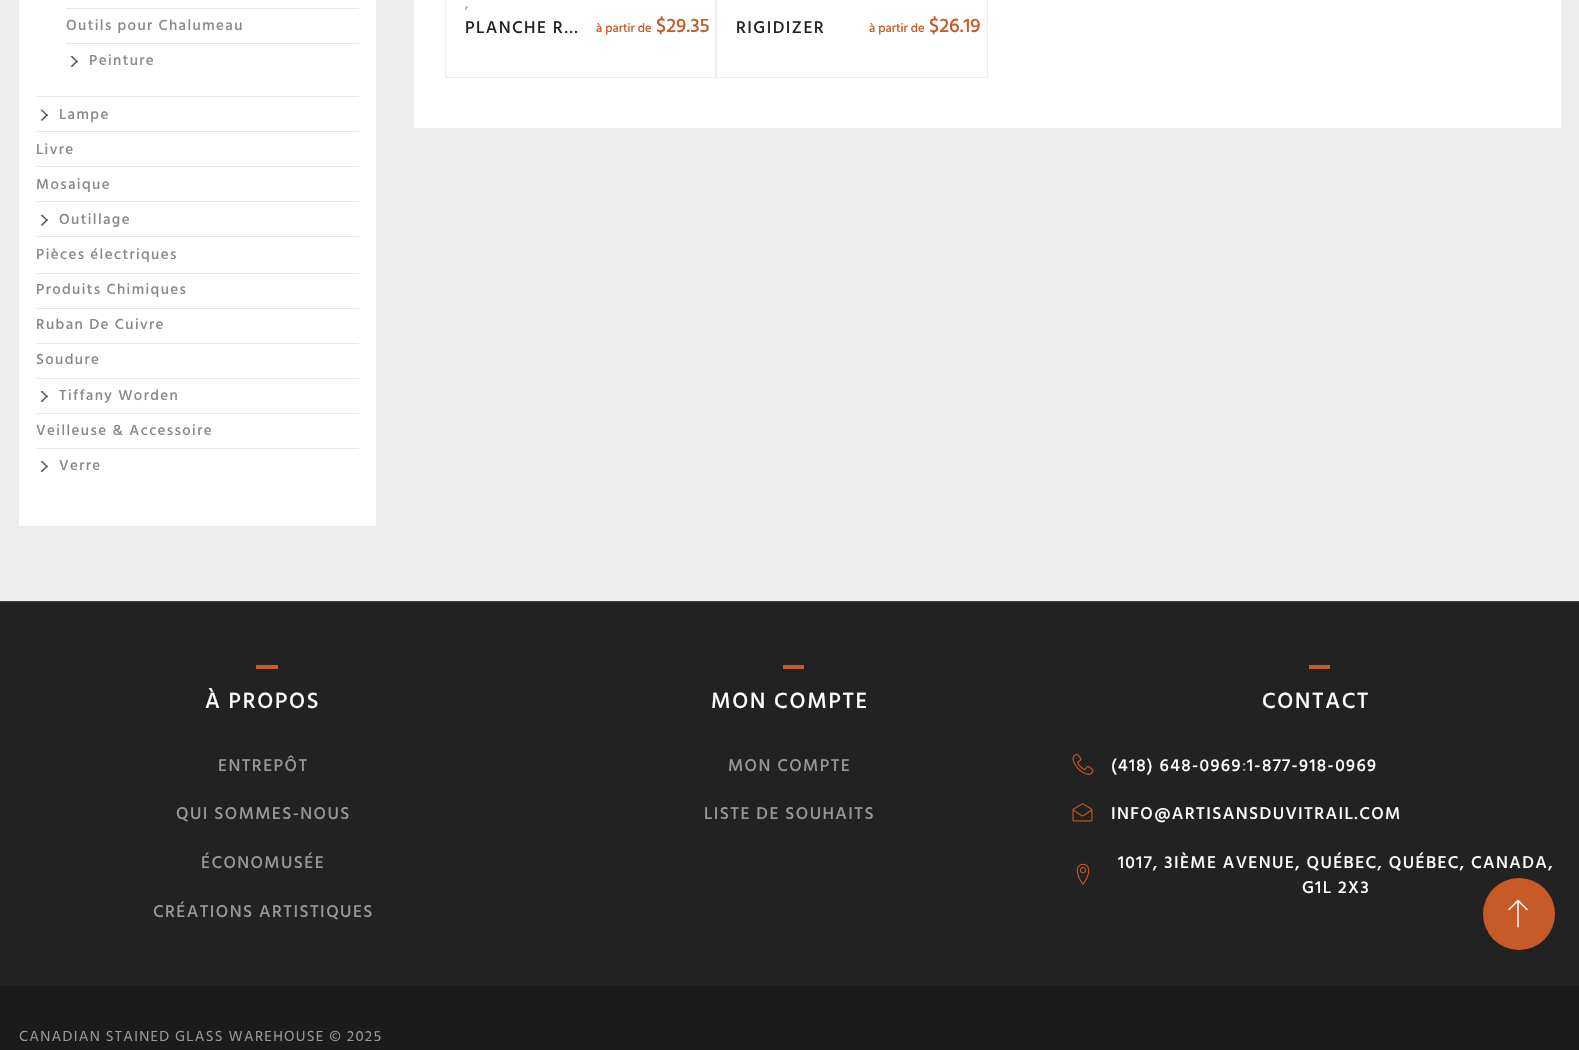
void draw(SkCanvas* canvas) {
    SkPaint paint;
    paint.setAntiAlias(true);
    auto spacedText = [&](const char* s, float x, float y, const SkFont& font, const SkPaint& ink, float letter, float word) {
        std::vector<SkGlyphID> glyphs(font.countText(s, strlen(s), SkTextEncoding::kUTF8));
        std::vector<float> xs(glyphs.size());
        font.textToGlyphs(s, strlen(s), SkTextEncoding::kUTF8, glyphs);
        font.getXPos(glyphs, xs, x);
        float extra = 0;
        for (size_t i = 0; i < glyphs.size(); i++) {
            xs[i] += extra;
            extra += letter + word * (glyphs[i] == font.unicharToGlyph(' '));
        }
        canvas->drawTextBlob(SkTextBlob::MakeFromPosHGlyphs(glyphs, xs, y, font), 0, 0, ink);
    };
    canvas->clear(0xFFEDEDED);
    paint.setColor(0xFFFFFFFF);
    canvas->drawRect(SkRect::MakeXYWH(19, 0, 357, 526), paint);
    paint.setColor(0xFFE8E8E8);
    canvas->drawRect(SkRect::MakeXYWH(66, 8, 293, 1), paint);
    SkFont font1(fontMgr->matchFamilyStyle("Hind Siliguri", SkFontStyle(500, SkFontStyle::kNormal_Width, SkFontStyle::kUpright_Slant)), 15);
    font1.setSubpixel(true);
    paint.setColor(0xFF888888);
    spacedText("Outils pour Chalumeau", 66, 30, font1, paint, 1.4f, 0);
    paint.setColor(0xFFE8E8E8);
    canvas->drawRect(SkRect::MakeXYWH(66, 43, 293, 1), paint);
    canvas->drawImageRect(SkImages::DeferredFromEncodedData(SkData::MakeFromFileName("img1.png")), SkRect::MakeXYWH(70, 56, 8, 11), SkSamplingOptions());
    paint.setColor(0xFF888888);
    spacedText("Peinture", 89, 65, font1, paint, 1.4f, 0);
    paint.setColor(0xFFE8E8E8);
    canvas->drawRect(SkRect::MakeXYWH(36, 96, 323, 1), paint);
    canvas->drawImageRect(SkImages::DeferredFromEncodedData(SkData::MakeFromFileName("img2.png")), SkRect::MakeXYWH(40, 109, 8, 12), SkSamplingOptions());
    paint.setColor(0xFF888888);
    spacedText("Lampe", 59, 119, font1, paint, 1.4f, 0);
    paint.setColor(0xFFE8E8E8);
    canvas->drawRect(SkRect::MakeXYWH(36, 131, 323, 1), paint);
    paint.setColor(0xFF888888);
    spacedText("Livre", 36, 154, font1, paint, 1.4f, 0);
    paint.setColor(0xFFE8E8E8);
    canvas->drawRect(SkRect::MakeXYWH(36, 166, 323, 1), paint);
    paint.setColor(0xFF888888);
    spacedText("Mosaique", 36, 189, font1, paint, 1.4f, 0);
    paint.setColor(0xFFE8E8E8);
    canvas->drawRect(SkRect::MakeXYWH(36, 201, 323, 1), paint);
    canvas->drawImageRect(SkImages::DeferredFromEncodedData(SkData::MakeFromFileName("img2.png")), SkRect::MakeXYWH(40, 214, 8, 12), SkSamplingOptions());
    paint.setColor(0xFF888888);
    spacedText("Outillage", 59, 224, font1, paint, 1.4f, 0);
    paint.setColor(0xFFE8E8E8);
    canvas->drawRect(SkRect::MakeXYWH(36, 236, 323, 1), paint);
    paint.setColor(0xFF888888);
    spacedText("Pièces électriques", 36, 259, font1, paint, 1.4f, 0);
    paint.setColor(0xFFE8E8E8);
    canvas->drawRect(SkRect::MakeXYWH(36, 273, 323, 1), paint);
    paint.setColor(0xFF888888);
    spacedText("Produits Chimiques", 36, 294, font1, paint, 1.4f, 0);
    paint.setColor(0xFFE8E8E8);
    canvas->drawRect(SkRect::MakeXYWH(36, 308, 323, 1), paint);
    paint.setColor(0xFF888888);
    spacedText("Ruban De Cuivre", 36, 329, font1, paint, 1.4f, 0);
    paint.setColor(0xFFE8E8E8);
    canvas->drawRect(SkRect::MakeXYWH(36, 343, 323, 1), paint);
    paint.setColor(0xFF888888);
    spacedText("Soudure", 36, 364, font1, paint, 1.4f, 0);
    paint.setColor(0xFFE8E8E8);
    canvas->drawRect(SkRect::MakeXYWH(36, 378, 323, 1), paint);
    canvas->drawImageRect(SkImages::DeferredFromEncodedData(SkData::MakeFromFileName("img1.png")), SkRect::MakeXYWH(40, 391, 8, 11), SkSamplingOptions());
    paint.setColor(0xFF888888);
    spacedText("Tiffany Worden", 59, 400, font1, paint, 1.4f, 0);
    paint.setColor(0xFFE8E8E8);
    canvas->drawRect(SkRect::MakeXYWH(36, 413, 323, 1), paint);
    paint.setColor(0xFF888888);
    spacedText("Veilleuse & Accessoire", 36, 435, font1, paint, 1.4f, 0);
    paint.setColor(0xFFE8E8E8);
    canvas->drawRect(SkRect::MakeXYWH(36, 448, 323, 1), paint);
    canvas->drawImageRect(SkImages::DeferredFromEncodedData(SkData::MakeFromFileName("img1.png")), SkRect::MakeXYWH(40, 461, 8, 11), SkSamplingOptions());
    paint.setColor(0xFF888888);
    spacedText("Verre", 59, 470, font1, paint, 1.4f, 0);
    paint.setColor(0xFFFFFFFF);
    canvas->drawRect(SkRect::MakeXYWH(414, 0, 1147, 128), paint);
    paint.setStyle(SkPaint::kStroke_Style);
    paint.setStrokeWidth(1);
    paint.setColor(0xFFEEEEEE);
    canvas->drawRect(SkRect::MakeXYWH(445.5f, -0.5f, 270, 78), paint);
    SkFont font2(fontMgr->matchFamilyStyle("Hind Siliguri", SkFontStyle::Normal()), 15);
    font2.setSubpixel(true);
    paint.setStyle(SkPaint::kFill_Style);
    paint.setColor(0xFF999999);
    canvas->drawString(",", 465, 8, font2, paint);
    SkFont font3(fontMgr->matchFamilyStyle("Hind Siliguri", SkFontStyle(500, SkFontStyle::kNormal_Width, SkFontStyle::kUpright_Slant)), 17.5f);
    font3.setSubpixel(true);
    paint.setColor(0xFF222222);
    spacedText("PLANCHE R…", 465, 33, font3, paint, 1.4f, 0);
    SkFont font4(fontMgr->matchFamilyStyle("Hind Siliguri", SkFontStyle(500, SkFontStyle::kNormal_Width, SkFontStyle::kUpright_Slant)), 12.5f);
    font4.setSubpixel(true);
    paint.setColor(0xFFC95A28);
    canvas->drawString("à partir de", 596, 32, font4, paint);
    SkFont font5(fontMgr->matchFamilyStyle("Hind Siliguri", SkFontStyle(500, SkFontStyle::kNormal_Width, SkFontStyle::kUpright_Slant)), 20);
    font5.setSubpixel(true);
    canvas->drawString("$29.35", 656, 32, font5, paint);
    paint.setStyle(SkPaint::kStroke_Style);
    paint.setColor(0xFFEEEEEE);
    canvas->drawRect(SkRect::MakeXYWH(716.5f, -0.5f, 271, 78), paint);
    paint.setStyle(SkPaint::kFill_Style);
    paint.setColor(0xFF222222);
    spacedText("RIGIDIZER", 736, 33, font3, paint, 1.4f, 0);
    paint.setColor(0xFFC95A28);
    canvas->drawString("à partir de", 869, 32, font4, paint);
    canvas->drawString("$26.19", 929, 32, font5, paint);
    paint.setColor(0xFF1B1B1B);
    canvas->drawRect(SkRect::MakeXYWH(0, 986, 1579, 64), paint);
    paint.setColor(0xFF222222);
    canvas->drawRect(SkRect::MakeXYWH(0, 602, 1579, 384), paint);
    paint.setColor(0xFF414141);
    canvas->drawRect(SkRect::MakeXYWH(0, 601, 1579, 1), paint);
    paint.setColor(0xFFC95A28);
    canvas->drawRect(SkRect::MakeXYWH(256, 665, 22, 4), paint);
    SkFont font6(fontMgr->matchFamilyStyle("Hind Siliguri", SkFontStyle(500, SkFontStyle::kNormal_Width, SkFontStyle::kUpright_Slant)), 22.5f);
    font6.setSubpixel(true);
    paint.setColor(0xFFFFFFFF);
    spacedText("À PROPOS", 205, 708, font6, paint, 1.75f, 0);
    paint.setColor(0xFF999999);
    spacedText("ENTREPÔT", 218, 771, font3, paint, 1.4f, 0);
    spacedText("QUI SOMMES-NOUS", 176, 819, font3, paint, 1.4f, 0);
    spacedText("ÉCONOMUSÉE", 201, 868, font3, paint, 1.4f, 0);
    spacedText("CRÉATIONS ARTISTIQUES", 153, 917, font3, paint, 1.4f, 0);
    paint.setColor(0xFFC95A28);
    canvas->drawRect(SkRect::MakeXYWH(783, 665, 21, 4), paint);
    paint.setColor(0xFFFFFFFF);
    spacedText("MON COMPTE", 711, 708, font6, paint, 1.75f, 0);
    paint.setColor(0xFF999999);
    spacedText("MON COMPTE", 728, 771, font3, paint, 1.4f, 0);
    spacedText("LISTE DE SOUHAITS", 704, 819, font3, paint, 1.4f, 0);
    paint.setColor(0xFFC95A28);
    canvas->drawRect(SkRect::MakeXYWH(1309, 665, 21, 4), paint);
    paint.setColor(0xFFFFFFFF);
    spacedText("CONTACT", 1262, 708, font6, paint, 1.75f, 0);
    canvas->drawImageRect(SkImages::DeferredFromEncodedData(SkData::MakeFromFileName("img3.png")), SkRect::MakeXYWH(1072, 753, 22, 22), SkSamplingOptions());
    spacedText("(418) 648-0969", 1111, 771, font3, paint, 1.4f, 0);
    paint.setColor(0xFF999999);
    spacedText(":", 1242, 771, font3, paint, 1.4f, 0);
    paint.setColor(0xFFFFFFFF);
    spacedText("1-877-918-0969", 1247, 771, font3, paint, 1.4f, 0);
    canvas->drawImageRect(SkImages::DeferredFromEncodedData(SkData::MakeFromFileName("img4.png")), SkRect::MakeXYWH(1072, 803, 21, 19), SkSamplingOptions());
    spacedText("INFO@ARTISANSDUVITRAIL.COM", 1111, 819, font3, paint, 1.4f, 0);
    canvas->drawImageRect(SkImages::DeferredFromEncodedData(SkData::MakeFromFileName("img5.png")), SkRect::MakeXYWH(1076, 863, 14, 22), SkSamplingOptions());
    spacedText("1017, 3IÈME AVENUE, QUÉBEC, QUÉBEC, CANADA,", 1118, 868, font3, paint, 1.4f, 0);
    spacedText("G1L 2X3", 1302, 893, font3, paint, 1.4f, 0);
    paint.setColor(0xFF999999);
    spacedText("CANADIAN STAINED GLASS WAREHOUSE © 2025", 19, 1041, font2, paint, 1.25f, 0);
    paint.setColor(0xFFC85A28);
    canvas->drawCircle(1519, 914, 36, paint);
    canvas->drawImageRect(SkImages::DeferredFromEncodedData(SkData::MakeFromFileName("img6.png")), SkRect::MakeXYWH(1508, 899, 20, 29), SkSamplingOptions());
}
